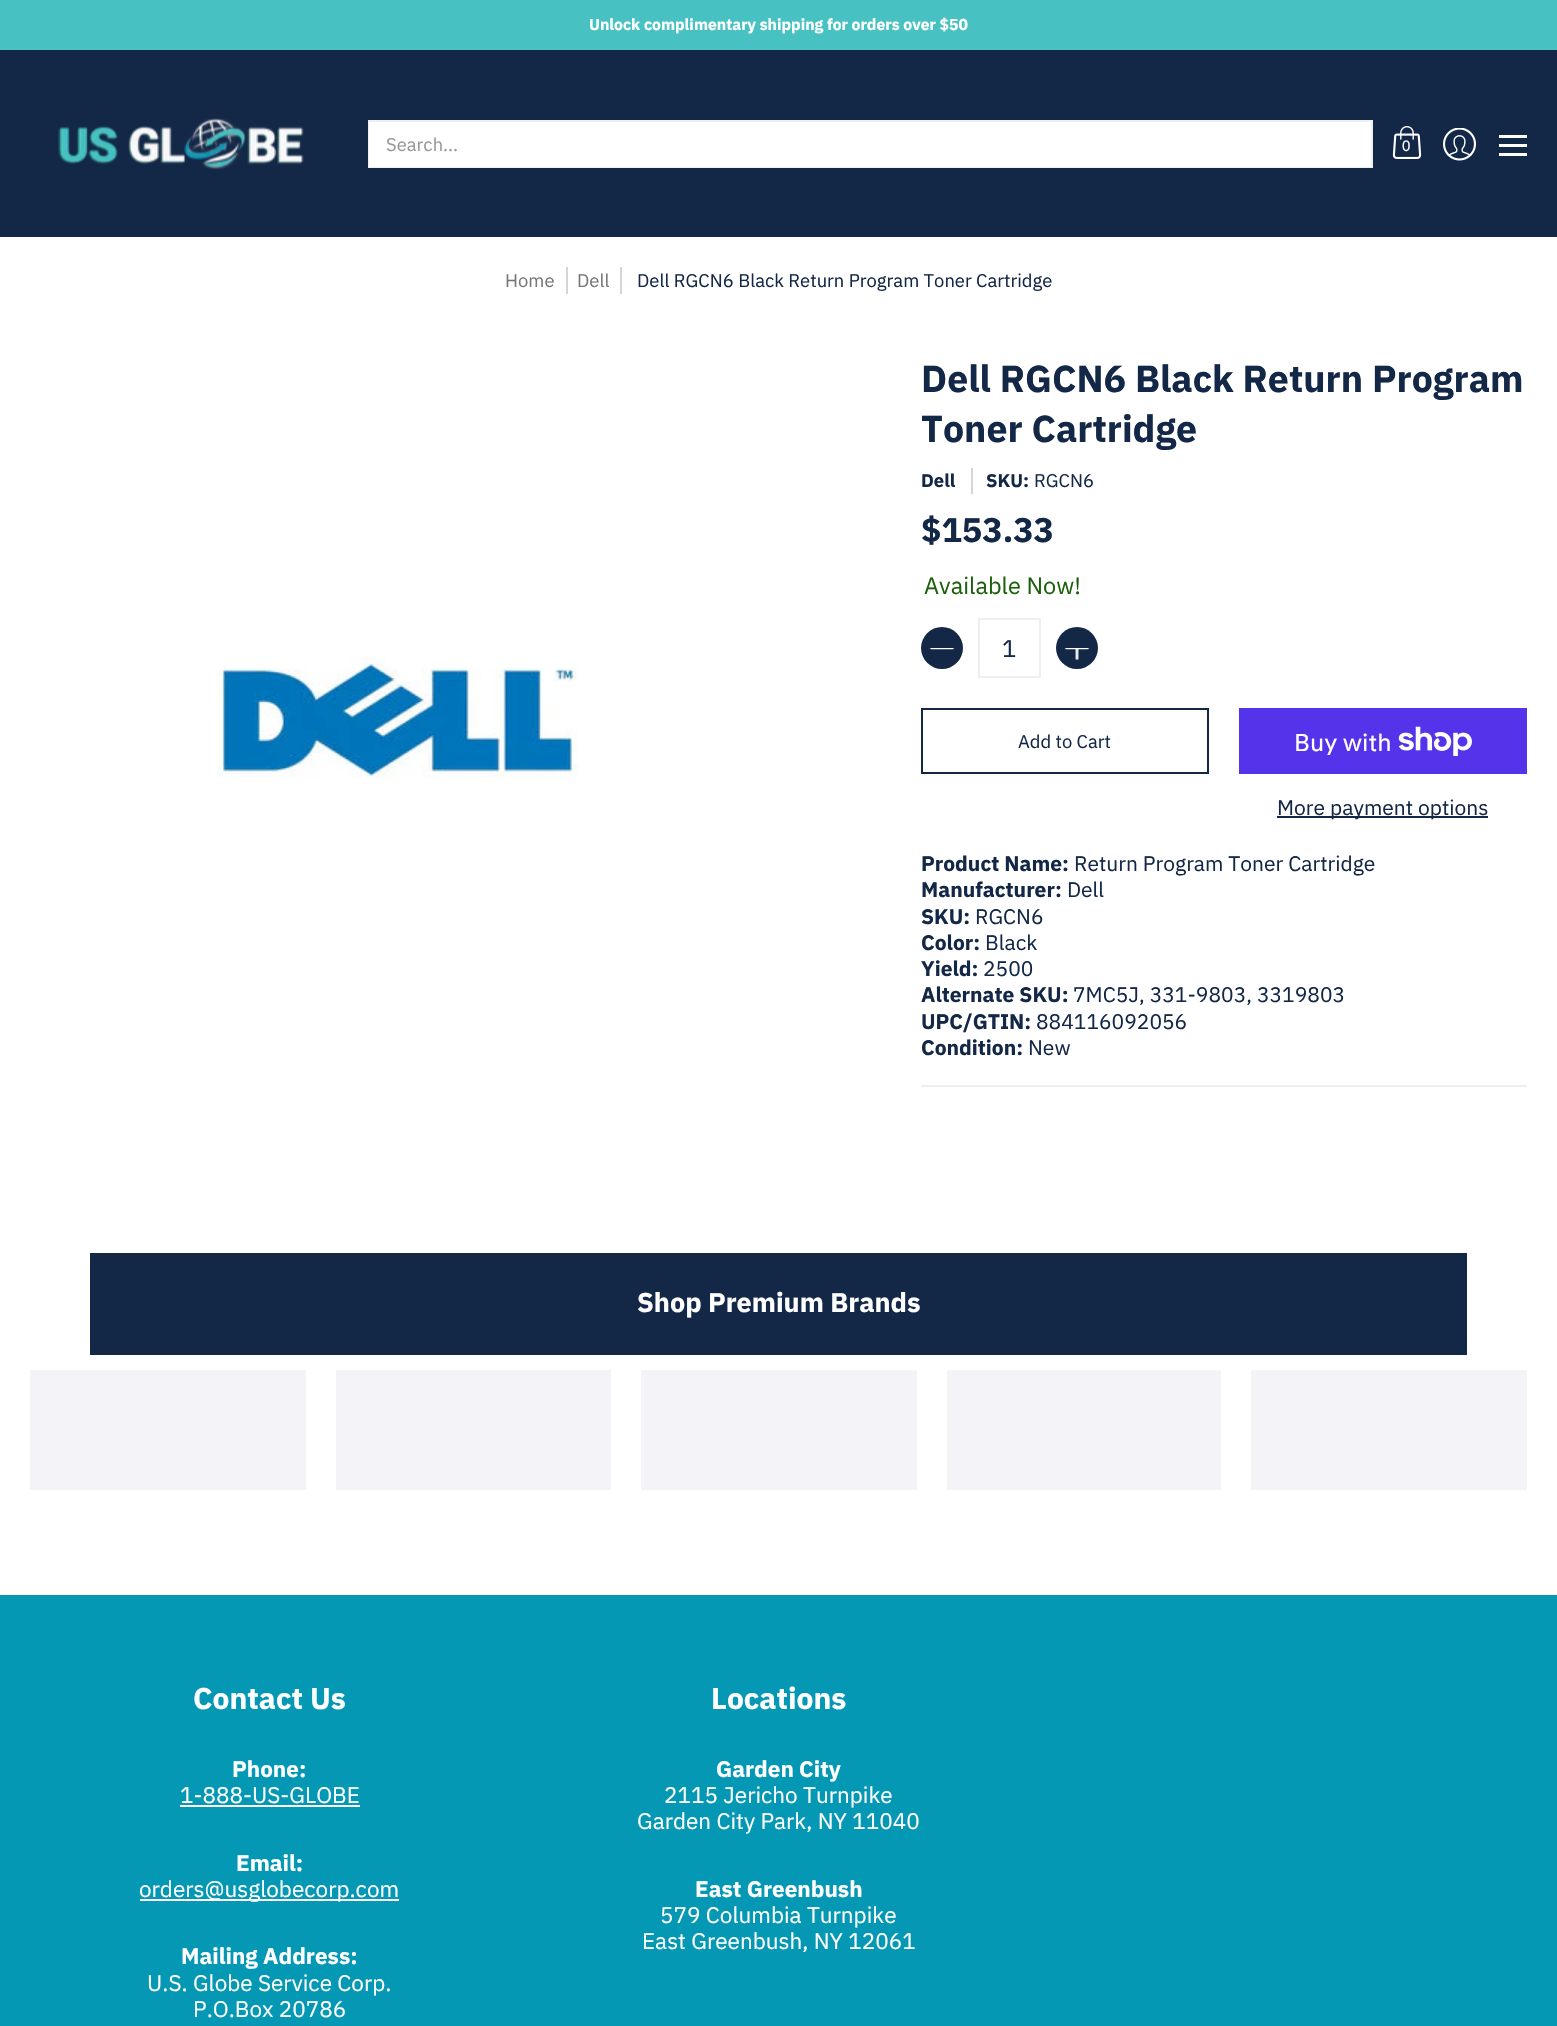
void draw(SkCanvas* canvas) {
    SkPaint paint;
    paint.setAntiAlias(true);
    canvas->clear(0xFFFFFFFF);
    paint.setColor(0xFF48C1C2);
    canvas->drawRect(SkRect::MakeXYWH(0, 0, 1557, 50), paint);
    SkFont font1(fontMgr->matchFamilyStyle("IBM Plex Sans", SkFontStyle::Bold()), 15.75f);
    font1.setSubpixel(true);
    paint.setColor(0xFFFFFFFF);
    canvas->drawString("Unlock complimentary shipping for orders over $50", 589, 30, font1, paint);
    paint.setColor(0xFF132747);
    canvas->drawRect(SkRect::MakeXYWH(0, 50, 1557, 187), paint);
    canvas->drawImageRect(SkImages::DeferredFromEncodedData(SkData::MakeFromFileName("img1.png")), SkRect::MakeXYWH(58, 118, 246, 52), SkSamplingOptions());
    paint.setStyle(SkPaint::kStroke_Style);
    paint.setStrokeWidth(2);
    paint.setColor(0xFFEFEFEF);
    canvas->drawRect(SkRect::MakeXYWH(369, 121, 1003, 46), paint);
    paint.setStyle(SkPaint::kFill_Style);
    paint.setColor(0xFFFFFFFF);
    canvas->drawRect(SkRect::MakeXYWH(369, 122, 1002, 45), paint);
    SkFont font2(fontMgr->matchFamilyStyle("IBM Plex Sans", SkFontStyle::Normal()), 18.4f);
    font2.setSubpixel(true);
    paint.setColor(0xFF989898);
    canvas->drawString("Search...", 386, 151, font2, paint);
    canvas->drawImageRect(SkImages::DeferredFromEncodedData(SkData::MakeFromFileName("img2.png")), SkRect::MakeXYWH(1392, 126, 30, 33), SkSamplingOptions());
    SkFont font3(fontMgr->matchFamilyStyle("Liberation Sans", SkFontStyle::Normal()), 15);
    font3.setSubpixel(true);
    paint.setColor(0xFFFFFFFF);
    canvas->drawString("0", 1402, 151, font3, paint);
    canvas->drawImageRect(SkImages::DeferredFromEncodedData(SkData::MakeFromFileName("img3.png")), SkRect::MakeXYWH(1443, 128, 33, 33), SkSamplingOptions());
    canvas->drawRect(SkRect::MakeXYWH(1499, 135, 28, 3), paint);
    canvas->drawRect(SkRect::MakeXYWH(1499, 153, 28, 3), paint);
    canvas->drawRect(SkRect::MakeXYWH(1499, 144, 28, 3), paint);
    paint.setColor(0xFF767676);
    canvas->drawString("Home", 505, 287, font2, paint);
    paint.setColor(0xFFD5D5D5);
    canvas->drawRect(SkRect::MakeXYWH(566, 267, 2, 27), paint);
    paint.setColor(0xFF767676);
    canvas->drawString("Dell", 577, 287, font2, paint);
    paint.setColor(0xFFD5D5D5);
    canvas->drawRect(SkRect::MakeXYWH(620, 267, 2, 27), paint);
    paint.setColor(0xFF132747);
    canvas->drawString("Dell RGCN6 Black Return Program Toner Cartridge", 637, 287, font2, paint);
    canvas->drawImageRect(SkImages::DeferredFromEncodedData(SkData::MakeFromFileName("img4.png")), SkRect::MakeXYWH(217, 657, 362, 121), SkSamplingOptions());
    SkFont font4(fontMgr->matchFamilyStyle("IBM Plex Sans", SkFontStyle::Bold()), 37.5f);
    font4.setSubpixel(true);
    canvas->drawString("Dell RGCN6 Black Return Program", 921, 392, font4, paint);
    canvas->drawString("Toner Cartridge", 921, 442, font4, paint);
    SkFont font5(fontMgr->matchFamilyStyle("IBM Plex Sans", SkFontStyle::Bold()), 18.4f);
    font5.setSubpixel(true);
    canvas->drawString("Dell", 921, 487, font5, paint);
    paint.setColor(0xFFD5D5D5);
    canvas->drawRect(SkRect::MakeXYWH(971, 468, 2, 26), paint);
    paint.setColor(0xFF132747);
    canvas->drawString("SKU:", 986, 487, font5, paint);
    canvas->drawString("RGCN6", 1034, 487, font2, paint);
    SkFont font6(fontMgr->matchFamilyStyle("IBM Plex Sans", SkFontStyle::Bold()), 34);
    font6.setSubpixel(true);
    canvas->drawString("$153.33", 921, 542, font6, paint);
    SkFont font7(fontMgr->matchFamilyStyle("IBM Plex Sans", SkFontStyle::Normal()), 23.5f);
    font7.setSubpixel(true);
    paint.setColor(0xFF1B6109);
    canvas->drawString("Available Now!", 924, 594, font7, paint);
    paint.setColor(0xFF132747);
    canvas->drawCircle(942, 648, 21, paint);
    canvas->drawImageRect(SkImages::DeferredFromEncodedData(SkData::MakeFromFileName("img5.png")), SkRect::MakeXYWH(929, 648, 26, 2), SkSamplingOptions());
    paint.setStyle(SkPaint::kStroke_Style);
    paint.setColor(0xFFEFEFEF);
    canvas->drawRect(SkRect::MakeXYWH(979, 619, 61, 58), paint);
    SkFont font8(fontMgr->matchFamilyStyle("IBM Plex Sans", SkFontStyle::Normal()), 24);
    font8.setSubpixel(true);
    paint.setStyle(SkPaint::kFill_Style);
    paint.setColor(0xFF132747);
    canvas->drawString("1", 1002, 657, font8, paint);
    canvas->drawCircle(1077, 648, 21, paint);
    canvas->drawImageRect(SkImages::DeferredFromEncodedData(SkData::MakeFromFileName("img6.png")), SkRect::MakeXYWH(1064, 648, 26, 12), SkSamplingOptions());
    paint.setStyle(SkPaint::kStroke_Style);
    canvas->drawRect(SkRect::MakeXYWH(922, 709, 286, 64), paint);
    paint.setStyle(SkPaint::kFill_Style);
    canvas->drawString("Add to Cart", 1018, 748, font2, paint);
    paint.setColor(0xFF5433EB);
    canvas->drawRect(SkRect::MakeXYWH(1239, 708, 288, 66), paint);
    SkFont font9(fontMgr->matchFamilyStyle("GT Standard", SkFontStyle::Normal()), 24);
    font9.setSubpixel(true);
    paint.setColor(0xFFFFFFFF);
    canvas->drawString("Buy with", 1294, 751, font9, paint);
    canvas->drawImageRect(SkImages::DeferredFromEncodedData(SkData::MakeFromFileName("img7.png")), SkRect::MakeXYWH(1398, 726, 74, 30), SkSamplingOptions());
    paint.setColor(0xFF132747);
    canvas->drawRect(SkRect::MakeXYWH(1277, 816, 211, 2), paint);
    SkFont font10(fontMgr->matchFamilyStyle("IBM Plex Sans", SkFontStyle::Normal()), 21);
    font10.setSubpixel(true);
    canvas->drawString("More payment options", 1277, 815, font10, paint);
    paint.setColor(0xFFEFEFEF);
    canvas->drawRect(SkRect::MakeXYWH(921, 1085, 606, 2), paint);
    SkFont font11(fontMgr->matchFamilyStyle("IBM Plex Sans", SkFontStyle::Bold()), 21);
    font11.setSubpixel(true);
    paint.setColor(0xFF132747);
    canvas->drawString("Product Name:", 921, 871, font11, paint);
    canvas->drawString("Return Program Toner Cartridge", 1074, 871, font10, paint);
    canvas->drawString("Manufacturer:", 921, 897, font11, paint);
    canvas->drawString("Dell", 1067, 897, font10, paint);
    canvas->drawString("SKU:", 921, 924, font11, paint);
    canvas->drawString("RGCN6", 975, 924, font10, paint);
    canvas->drawString("Color:", 921, 950, font11, paint);
    canvas->drawString("Black", 985, 950, font10, paint);
    canvas->drawString("Yield:", 921, 976, font11, paint);
    canvas->drawString("2500", 983, 976, font10, paint);
    canvas->drawString("Alternate SKU:", 921, 1002, font11, paint);
    canvas->drawString("7MC5J, 331-9803, 3319803", 1073, 1002, font10, paint);
    canvas->drawString("UPC/GTIN:", 921, 1029, font11, paint);
    canvas->drawString("884116092056", 1036, 1029, font10, paint);
    canvas->drawString("Condition:", 921, 1055, font11, paint);
    canvas->drawString("New", 1028, 1055, font10, paint);
    canvas->drawRect(SkRect::MakeXYWH(90, 1253, 1377, 102), paint);
    SkFont font12(fontMgr->matchFamilyStyle("IBM Plex Sans", SkFontStyle::Bold()), 27);
    font12.setSubpixel(true);
    paint.setColor(0xFFFFFFFF);
    canvas->drawString("Shop Premium Brands", 637, 1312, font12, paint);
    paint.setColor(0xFFF3F3F8);
    canvas->drawRect(SkRect::MakeXYWH(30, 1370, 276, 120), paint);
    canvas->drawRect(SkRect::MakeXYWH(336, 1370, 275, 120), paint);
    canvas->drawRect(SkRect::MakeXYWH(641, 1370, 276, 120), paint);
    canvas->drawRect(SkRect::MakeXYWH(947, 1370, 274, 120), paint);
    canvas->drawRect(SkRect::MakeXYWH(1251, 1370, 276, 120), paint);
    paint.setColor(0xFF0498B4);
    canvas->drawRect(SkRect::MakeXYWH(0, 1595, 1557, 431), paint);
    SkFont font13(fontMgr->matchFamilyStyle("IBM Plex Sans", SkFontStyle::Bold()), 30);
    font13.setSubpixel(true);
    paint.setColor(0xFFFFFFFF);
    canvas->drawString("Contact Us", 193, 1709, font13, paint);
    SkFont font14(fontMgr->matchFamilyStyle("IBM Plex Sans", SkFontStyle::Bold()), 22.5f);
    font14.setSubpixel(true);
    canvas->drawString("Phone:", 232, 1777, font14, paint);
    SkFont font15(fontMgr->matchFamilyStyle("IBM Plex Sans", SkFontStyle::Normal()), 22.5f);
    font15.setSubpixel(true);
    canvas->drawString("1-888-US-GLOBE", 180, 1803, font15, paint);
    canvas->drawRect(SkRect::MakeXYWH(180, 1805, 180, 2), paint);
    canvas->drawString("Email:", 236, 1871, font14, paint);
    canvas->drawRect(SkRect::MakeXYWH(140, 1899, 259, 2), paint);
    canvas->drawString("orders@usglobecorp.com", 139, 1897, font15, paint);
    canvas->drawString("Mailing Address:", 181, 1964, font14, paint);
    canvas->drawString("U.S. Globe Service Corp.", 147, 1991, font15, paint);
    canvas->drawString("P.O.Box 20786", 193, 2017, font15, paint);
    canvas->drawString("Locations", 711, 1709, font13, paint);
    canvas->drawString("Garden City", 716, 1777, font14, paint);
    canvas->drawString("2115 Jericho Turnpike", 664, 1803, font15, paint);
    canvas->drawString("Garden City Park, NY 11040", 637, 1829, font15, paint);
    canvas->drawString("East Greenbush", 695, 1897, font14, paint);
    canvas->drawString("579 Columbia Turnpike", 660, 1923, font15, paint);
    canvas->drawString("East Greenbush, NY 12061", 642, 1949, font15, paint);
}
